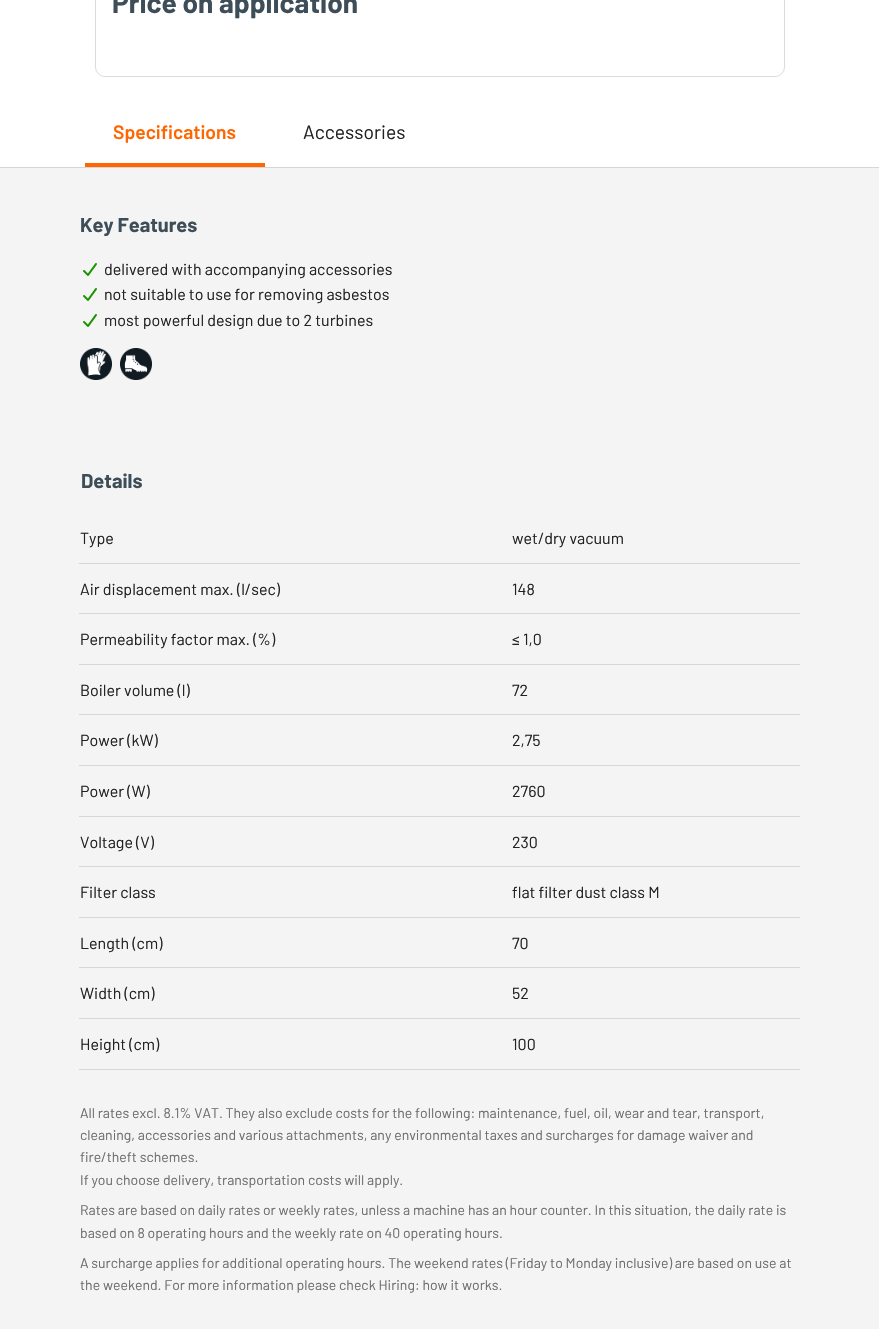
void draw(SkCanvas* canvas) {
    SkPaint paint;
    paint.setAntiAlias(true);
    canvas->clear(0xFFFFFFFF);
    paint.setStyle(SkPaint::kStroke_Style);
    paint.setStrokeWidth(1);
    paint.setColor(0xFFD8DCDE);
    canvas->drawRoundRect(SkRect::MakeXYWH(95.5f, -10.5f, 689, 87), 9.5f, 9.5f, paint);
    SkFont font1(fontMgr->matchFamilyStyle("Barlow", SkFontStyle::Bold()), 28);
    font1.setSubpixel(true);
    paint.setStyle(SkPaint::kFill_Style);
    paint.setColor(0xFF3E4E58);
    canvas->drawString("Price on application", 112, 13, font1, paint);
    SkFont font2(fontMgr->matchFamilyStyle("Barlow", SkFontStyle(600, SkFontStyle::kNormal_Width, SkFontStyle::kUpright_Slant)), 19.25f);
    font2.setSubpixel(true);
    paint.setColor(0xFFFF6600);
    canvas->drawString("Specifications", 113, 139, font2, paint);
    canvas->drawRect(SkRect::MakeXYWH(85, 163, 180, 4), paint);
    SkFont font3(fontMgr->matchFamilyStyle("Barlow", SkFontStyle::Normal()), 19.25f);
    font3.setSubpixel(true);
    paint.setColor(0xFF222222);
    canvas->drawString("Accessories", 303, 139, font3, paint);
    paint.setColor(0xFFF4F4F4);
    canvas->drawRect(SkRect::MakeXYWH(0, 168, 879, 1161), paint);
    paint.setColor(0xFFD3D6DB);
    canvas->drawRect(SkRect::MakeXYWH(0, 167, 879, 1), paint);
    SkFont font4(fontMgr->matchFamilyStyle("Barlow", SkFontStyle::Bold()), 20);
    font4.setSubpixel(true);
    paint.setColor(0xFF3E4E58);
    canvas->drawString("Key Features", 80, 232, font4, paint);
    canvas->drawImageRect(SkImages::DeferredFromEncodedData(SkData::MakeFromFileName("img1.png")), SkRect::MakeXYWH(83, 263, 14, 13), SkSamplingOptions());
    SkFont font5(fontMgr->matchFamilyStyle("Barlow", SkFontStyle::Normal()), 16);
    font5.setSubpixel(true);
    paint.setColor(0xFF222222);
    canvas->drawString("delivered with accompanying accessories", 104, 275, font5, paint);
    canvas->drawImageRect(SkImages::DeferredFromEncodedData(SkData::MakeFromFileName("img1.png")), SkRect::MakeXYWH(83, 288, 14, 13), SkSamplingOptions());
    canvas->drawString("not suitable to use for removing asbestos", 104, 300, font5, paint);
    canvas->drawImageRect(SkImages::DeferredFromEncodedData(SkData::MakeFromFileName("img1.png")), SkRect::MakeXYWH(83, 314, 14, 13), SkSamplingOptions());
    canvas->drawString("most powerful design due to 2 turbines", 104, 326, font5, paint);
    canvas->drawImageRect(SkImages::DeferredFromEncodedData(SkData::MakeFromFileName("img2.png")), SkRect::MakeXYWH(80, 348, 32, 32), SkSamplingOptions());
    canvas->drawImageRect(SkImages::DeferredFromEncodedData(SkData::MakeFromFileName("img3.png")), SkRect::MakeXYWH(120, 348, 32, 32), SkSamplingOptions());
    paint.setColor(0xFF3E4E58);
    canvas->drawString("Details", 81, 488, font4, paint);
    paint.setColor(0xFF222222);
    canvas->drawString("Type", 80, 544, font5, paint);
    canvas->drawString("wet/dry vacuum", 512, 544, font5, paint);
    paint.setColor(0xFFD3D6DB);
    canvas->drawRect(SkRect::MakeXYWH(79, 563, 721, 1), paint);
    paint.setColor(0xFF222222);
    canvas->drawString("Air displacement max. (l/sec)", 80, 595, font5, paint);
    canvas->drawString("148", 512, 595, font5, paint);
    paint.setColor(0xFFD3D6DB);
    canvas->drawRect(SkRect::MakeXYWH(79, 613, 721, 1), paint);
    paint.setColor(0xFF222222);
    canvas->drawString("Permeability factor max. (%)", 80, 645, font5, paint);
    SkFont font6(fontMgr->matchFamilyStyle("Roboto", SkFontStyle::Normal()), 16);
    font6.setSubpixel(true);
    canvas->drawString("≤", 512, 645, font6, paint);
    canvas->drawString("1,0", 523, 645, font5, paint);
    paint.setColor(0xFFD3D6DB);
    canvas->drawRect(SkRect::MakeXYWH(79, 664, 721, 1), paint);
    paint.setColor(0xFF222222);
    canvas->drawString("Boiler volume (l)", 80, 696, font5, paint);
    canvas->drawString("72", 512, 696, font5, paint);
    paint.setColor(0xFFD3D6DB);
    canvas->drawRect(SkRect::MakeXYWH(79, 714, 721, 1), paint);
    paint.setColor(0xFF222222);
    canvas->drawString("Power (kW)", 80, 746, font5, paint);
    canvas->drawString("2,75", 512, 746, font5, paint);
    paint.setColor(0xFFD3D6DB);
    canvas->drawRect(SkRect::MakeXYWH(79, 765, 721, 1), paint);
    paint.setColor(0xFF222222);
    canvas->drawString("Power (W)", 80, 797, font5, paint);
    canvas->drawString("2760", 512, 797, font5, paint);
    paint.setColor(0xFFD3D6DB);
    canvas->drawRect(SkRect::MakeXYWH(79, 816, 721, 1), paint);
    paint.setColor(0xFF222222);
    canvas->drawString("Voltage (V)", 80, 848, font5, paint);
    canvas->drawString("230", 512, 848, font5, paint);
    paint.setColor(0xFFD3D6DB);
    canvas->drawRect(SkRect::MakeXYWH(79, 866, 721, 1), paint);
    paint.setColor(0xFF222222);
    canvas->drawString("Filter class", 80, 898, font5, paint);
    canvas->drawString("flat filter dust class M", 512, 898, font5, paint);
    paint.setColor(0xFFD3D6DB);
    canvas->drawRect(SkRect::MakeXYWH(79, 917, 721, 1), paint);
    paint.setColor(0xFF222222);
    canvas->drawString("Length (cm)", 80, 949, font5, paint);
    canvas->drawString("70", 512, 949, font5, paint);
    paint.setColor(0xFFD3D6DB);
    canvas->drawRect(SkRect::MakeXYWH(79, 967, 721, 1), paint);
    paint.setColor(0xFF222222);
    canvas->drawString("Width (cm)", 80, 999, font5, paint);
    canvas->drawString("52", 512, 999, font5, paint);
    paint.setColor(0xFFD3D6DB);
    canvas->drawRect(SkRect::MakeXYWH(79, 1018, 721, 1), paint);
    canvas->drawRect(SkRect::MakeXYWH(79, 1069, 721, 1), paint);
    paint.setColor(0xFF222222);
    canvas->drawString("Height (cm)", 80, 1050, font5, paint);
    canvas->drawString("100", 512, 1050, font5, paint);
    SkFont font7(fontMgr->matchFamilyStyle("Barlow", SkFontStyle::Normal()), 14);
    font7.setSubpixel(true);
    paint.setColor(0xFF6E6E6E);
    canvas->drawString("All rates excl. 8.1% VAT. They also exclude costs for the following: maintenance, fuel, oil, wear and tear, transport,", 80, 1118, font7, paint);
    canvas->drawString("cleaning, accessories and various attachments, any environmental taxes and surcharges for damage waiver and", 80, 1140, font7, paint);
    canvas->drawString("fire/theft schemes.", 80, 1162, font7, paint);
    canvas->drawString("If you choose delivery, transportation costs will apply.", 80, 1185, font7, paint);
    canvas->drawString("Rates are based on daily rates or weekly rates, unless a machine has an hour counter. In this situation, the daily rate is", 80, 1215, font7, paint);
    canvas->drawString("based on 8 operating hours and the weekly rate on 40 operating hours.", 80, 1238, font7, paint);
    canvas->drawString("A surcharge applies for additional operating hours. The weekend rates (Friday to Monday inclusive) are based on use at", 80, 1268, font7, paint);
    canvas->drawString("the weekend. For more information please check Hiring: how it works.", 80, 1290, font7, paint);
}
